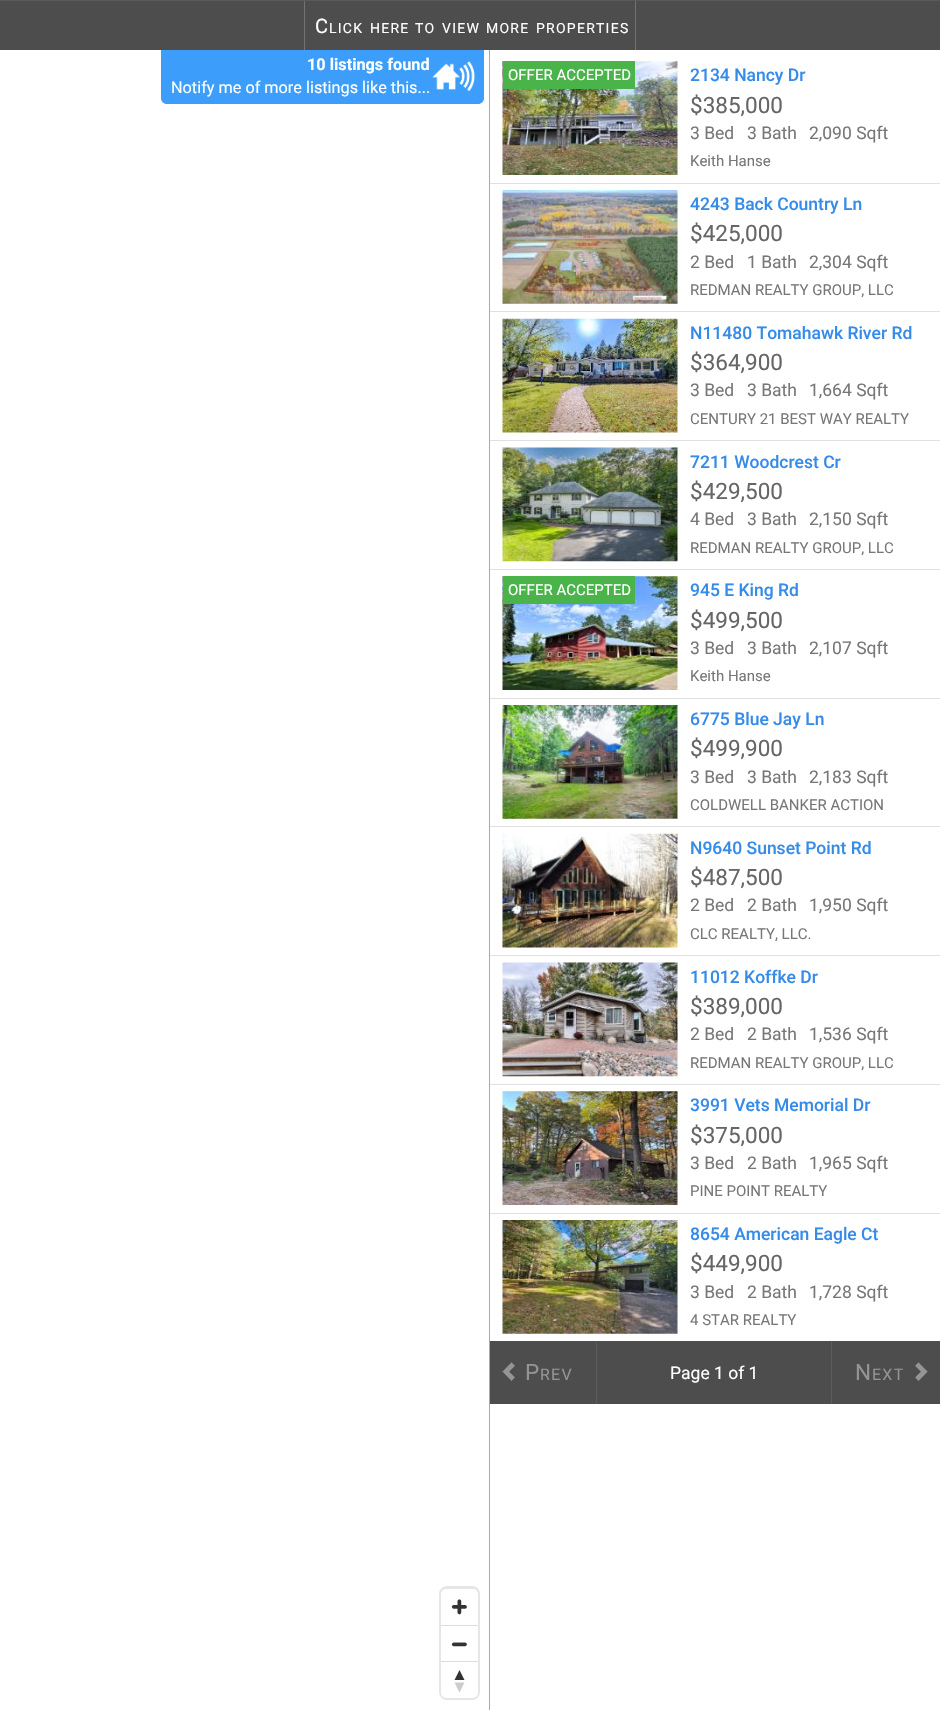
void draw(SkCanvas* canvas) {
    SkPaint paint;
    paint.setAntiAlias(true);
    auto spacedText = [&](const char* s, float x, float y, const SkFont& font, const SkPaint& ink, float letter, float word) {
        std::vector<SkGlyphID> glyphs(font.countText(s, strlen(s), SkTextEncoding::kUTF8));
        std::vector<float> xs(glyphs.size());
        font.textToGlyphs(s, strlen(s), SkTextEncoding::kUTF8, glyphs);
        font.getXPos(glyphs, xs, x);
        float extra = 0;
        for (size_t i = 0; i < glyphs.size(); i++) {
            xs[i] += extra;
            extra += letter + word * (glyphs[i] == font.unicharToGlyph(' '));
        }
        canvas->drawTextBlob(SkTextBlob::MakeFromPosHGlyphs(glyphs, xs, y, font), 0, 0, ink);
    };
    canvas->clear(0xFFFFFFFF);
    paint.setColor(0xFF3C9EFA);
    canvas->drawPath(SkPathBuilder().moveTo(161, 49).lineTo(484, 49).lineTo(484, 98).cubicTo(484, 101.5f, 481.5f, 104, 478, 104).lineTo(167, 104).cubicTo(163.5f, 104, 161, 101.5f, 161, 98).close().detach(), paint);
    paint.setColor(0xFFAAAAAA);
    canvas->drawRect(SkRect::MakeXYWH(489, 49, 1, 1661), paint);
    paint.setColor(0xFF4D4D4D);
    canvas->drawRect(SkRect::MakeXYWH(0, 1, 940, 49), paint);
    paint.setColor(0xFF5A5A5A);
    canvas->drawRect(SkRect::MakeXYWH(0, 0, 940, 1), paint);
    paint.setColor(0xFF737373);
    canvas->drawRect(SkRect::MakeXYWH(635, 1, 1, 49), paint);
    canvas->drawRect(SkRect::MakeXYWH(304, 1, 1, 49), paint);
    SkFont font1(fontMgr->matchFamilyStyle("Roboto", SkFontStyle::Normal()), 20);
    font1.setSubpixel(true);
    paint.setColor(0xFFFFFFFF);
    spacedText("C", 315, 33, font1, paint, 1.25f, 0);
    SkFont font2(fontMgr->matchFamilyStyle("Roboto", SkFontStyle::Normal()), 14);
    font2.setSubpixel(true);
    spacedText("LICK", 329, 33, font2, paint, 1.25f, 0);
    spacedText("HERE", 370, 33, font2, paint, 1.25f, 0);
    spacedText("TO", 415, 33, font2, paint, 1.25f, 0);
    spacedText("VIEW", 442, 33, font2, paint, 1.25f, 0);
    spacedText("MORE", 486, 33, font2, paint, 1.25f, 0);
    spacedText("PROPERTIES", 536, 33, font2, paint, 1.25f, 0);
    canvas->drawImageRect(SkImages::DeferredFromEncodedData(SkData::MakeFromFileName("img1.png")), SkRect::MakeXYWH(432, 61, 43, 31), SkSamplingOptions());
    SkFont font3(fontMgr->matchFamilyStyle("Roboto", SkFontStyle::Bold()), 16.25f);
    font3.setSubpixel(true);
    canvas->drawString("10 listings found", 307, 70, font3, paint);
    SkFont font4(fontMgr->matchFamilyStyle("Roboto", SkFontStyle::Normal()), 16.25f);
    font4.setSubpixel(true);
    canvas->drawString("Notify me of more listings like this...", 171, 93, font4, paint);
    canvas->drawImageRect(SkImages::DeferredFromEncodedData(SkData::MakeFromFileName("img2.png")), SkRect::MakeXYWH(502, 61, 176, 114), SkSamplingOptions());
    SkFont font5(fontMgr->matchFamilyStyle("Roboto", SkFontStyle(500, SkFontStyle::kNormal_Width, SkFontStyle::kUpright_Slant)), 17.5f);
    font5.setSubpixel(true);
    paint.setColor(0xFF348BE9);
    canvas->drawString("2134 Nancy Dr", 690, 81, font5, paint);
    paint.setColor(0xFF4AB44A);
    canvas->drawRect(SkRect::MakeXYWH(503, 61, 132, 28), paint);
    SkFont font6(fontMgr->matchFamilyStyle("Roboto", SkFontStyle::Normal()), 15);
    font6.setSubpixel(true);
    paint.setColor(0xFFFFFFFF);
    canvas->drawString("OFFER ACCEPTED", 508, 80, font6, paint);
    SkFont font7(fontMgr->matchFamilyStyle("Roboto", SkFontStyle::Normal()), 22.5f);
    font7.setSubpixel(true);
    paint.setColor(0xFF666666);
    canvas->drawString("$385,000", 690, 113, font7, paint);
    SkFont font8(fontMgr->matchFamilyStyle("Roboto", SkFontStyle::Normal()), 17.5f);
    font8.setSubpixel(true);
    paint.setColor(0xFF777777);
    canvas->drawString("3 Bed", 690, 139, font8, paint);
    canvas->drawString("3 Bath", 747, 139, font8, paint);
    canvas->drawString("2,090 Sqft", 809, 139, font8, paint);
    canvas->drawString("Keith Hanse", 690, 166, font6, paint);
    paint.setColor(0xFFE0E0E0);
    canvas->drawRect(SkRect::MakeXYWH(490, 183, 450, 1), paint);
    canvas->drawImageRect(SkImages::DeferredFromEncodedData(SkData::MakeFromFileName("img3.png")), SkRect::MakeXYWH(502, 190, 176, 114), SkSamplingOptions());
    paint.setColor(0xFF348BE9);
    canvas->drawString("4243 Back Country Ln", 690, 210, font5, paint);
    paint.setColor(0xFF666666);
    canvas->drawString("$425,000", 690, 241, font7, paint);
    paint.setColor(0xFF777777);
    canvas->drawString("2 Bed", 690, 268, font8, paint);
    canvas->drawString("1 Bath", 747, 268, font8, paint);
    canvas->drawString("2,304 Sqft", 809, 268, font8, paint);
    canvas->drawString("REDMAN REALTY GROUP, LLC", 690, 295, font6, paint);
    paint.setColor(0xFFE0E0E0);
    canvas->drawRect(SkRect::MakeXYWH(490, 311, 450, 1), paint);
    canvas->drawImageRect(SkImages::DeferredFromEncodedData(SkData::MakeFromFileName("img4.png")), SkRect::MakeXYWH(502, 318, 176, 115), SkSamplingOptions());
    paint.setColor(0xFF348BE9);
    canvas->drawString("N11480 Tomahawk River Rd", 690, 339, font5, paint);
    paint.setColor(0xFF666666);
    canvas->drawString("$364,900", 690, 370, font7, paint);
    paint.setColor(0xFF777777);
    canvas->drawString("3 Bed", 690, 396, font8, paint);
    canvas->drawString("3 Bath", 747, 396, font8, paint);
    canvas->drawString("1,664 Sqft", 809, 396, font8, paint);
    canvas->drawString("CENTURY 21 BEST WAY REALTY", 690, 424, font6, paint);
    paint.setColor(0xFFE0E0E0);
    canvas->drawRect(SkRect::MakeXYWH(490, 440, 450, 1), paint);
    canvas->drawImageRect(SkImages::DeferredFromEncodedData(SkData::MakeFromFileName("img5.png")), SkRect::MakeXYWH(502, 447, 176, 115), SkSamplingOptions());
    paint.setColor(0xFF348BE9);
    canvas->drawString("7211 Woodcrest Cr", 690, 468, font5, paint);
    paint.setColor(0xFF666666);
    canvas->drawString("$429,500", 690, 499, font7, paint);
    paint.setColor(0xFF777777);
    canvas->drawString("4 Bed", 690, 525, font8, paint);
    canvas->drawString("3 Bath", 747, 525, font8, paint);
    canvas->drawString("2,150 Sqft", 809, 525, font8, paint);
    canvas->drawString("REDMAN REALTY GROUP, LLC", 690, 553, font6, paint);
    paint.setColor(0xFFE0E0E0);
    canvas->drawRect(SkRect::MakeXYWH(490, 569, 450, 1), paint);
    canvas->drawImageRect(SkImages::DeferredFromEncodedData(SkData::MakeFromFileName("img6.png")), SkRect::MakeXYWH(502, 576, 176, 114), SkSamplingOptions());
    paint.setColor(0xFF348BE9);
    canvas->drawString("945 E King Rd", 690, 596, font5, paint);
    paint.setColor(0xFF4AB44A);
    canvas->drawRect(SkRect::MakeXYWH(503, 576, 132, 28), paint);
    paint.setColor(0xFFFFFFFF);
    canvas->drawString("OFFER ACCEPTED", 508, 595, font6, paint);
    paint.setColor(0xFF666666);
    canvas->drawString("$499,500", 690, 628, font7, paint);
    paint.setColor(0xFF777777);
    canvas->drawString("3 Bed", 690, 654, font8, paint);
    canvas->drawString("3 Bath", 747, 654, font8, paint);
    canvas->drawString("2,107 Sqft", 809, 654, font8, paint);
    canvas->drawString("Keith Hanse", 690, 681, font6, paint);
    paint.setColor(0xFFE0E0E0);
    canvas->drawRect(SkRect::MakeXYWH(490, 698, 450, 1), paint);
    canvas->drawImageRect(SkImages::DeferredFromEncodedData(SkData::MakeFromFileName("img7.png")), SkRect::MakeXYWH(502, 705, 176, 114), SkSamplingOptions());
    paint.setColor(0xFF348BE9);
    canvas->drawString("6775 Blue Jay Ln", 690, 725, font5, paint);
    paint.setColor(0xFF666666);
    canvas->drawString("$499,900", 690, 756, font7, paint);
    paint.setColor(0xFF777777);
    canvas->drawString("3 Bed", 690, 783, font8, paint);
    canvas->drawString("3 Bath", 747, 783, font8, paint);
    canvas->drawString("2,183 Sqft", 809, 783, font8, paint);
    canvas->drawString("COLDWELL BANKER ACTION", 690, 810, font6, paint);
    paint.setColor(0xFFE0E0E0);
    canvas->drawRect(SkRect::MakeXYWH(490, 826, 450, 1), paint);
    canvas->drawImageRect(SkImages::DeferredFromEncodedData(SkData::MakeFromFileName("img8.png")), SkRect::MakeXYWH(502, 833, 176, 115), SkSamplingOptions());
    paint.setColor(0xFF348BE9);
    canvas->drawString("N9640 Sunset Point Rd", 690, 854, font5, paint);
    paint.setColor(0xFF666666);
    canvas->drawString("$487,500", 690, 885, font7, paint);
    paint.setColor(0xFF777777);
    canvas->drawString("2 Bed", 690, 911, font8, paint);
    canvas->drawString("2 Bath", 747, 911, font8, paint);
    canvas->drawString("1,950 Sqft", 809, 911, font8, paint);
    canvas->drawString("CLC REALTY, LLC.", 690, 939, font6, paint);
    paint.setColor(0xFFE0E0E0);
    canvas->drawRect(SkRect::MakeXYWH(490, 955, 450, 1), paint);
    canvas->drawImageRect(SkImages::DeferredFromEncodedData(SkData::MakeFromFileName("img9.png")), SkRect::MakeXYWH(502, 962, 176, 115), SkSamplingOptions());
    paint.setColor(0xFF348BE9);
    canvas->drawString("11012 Koffke Dr", 690, 983, font5, paint);
    paint.setColor(0xFF666666);
    canvas->drawString("$389,000", 690, 1014, font7, paint);
    paint.setColor(0xFF777777);
    canvas->drawString("2 Bed", 690, 1040, font8, paint);
    canvas->drawString("2 Bath", 747, 1040, font8, paint);
    canvas->drawString("1,536 Sqft", 809, 1040, font8, paint);
    canvas->drawString("REDMAN REALTY GROUP, LLC", 690, 1068, font6, paint);
    paint.setColor(0xFFE0E0E0);
    canvas->drawRect(SkRect::MakeXYWH(490, 1084, 450, 1), paint);
    canvas->drawImageRect(SkImages::DeferredFromEncodedData(SkData::MakeFromFileName("img10.png")), SkRect::MakeXYWH(502, 1091, 176, 114), SkSamplingOptions());
    paint.setColor(0xFF348BE9);
    canvas->drawString("3991 Vets Memorial Dr", 690, 1111, font5, paint);
    paint.setColor(0xFF666666);
    canvas->drawString("$375,000", 690, 1143, font7, paint);
    paint.setColor(0xFF777777);
    canvas->drawString("3 Bed", 690, 1169, font8, paint);
    canvas->drawString("2 Bath", 747, 1169, font8, paint);
    canvas->drawString("1,965 Sqft", 809, 1169, font8, paint);
    canvas->drawString("PINE POINT REALTY", 690, 1196, font6, paint);
    paint.setColor(0xFFE0E0E0);
    canvas->drawRect(SkRect::MakeXYWH(490, 1213, 450, 1), paint);
    canvas->drawImageRect(SkImages::DeferredFromEncodedData(SkData::MakeFromFileName("img11.png")), SkRect::MakeXYWH(502, 1220, 176, 114), SkSamplingOptions());
    paint.setColor(0xFF348BE9);
    canvas->drawString("8654 American Eagle Ct", 690, 1240, font5, paint);
    paint.setColor(0xFF666666);
    canvas->drawString("$449,900", 690, 1271, font7, paint);
    paint.setColor(0xFF777777);
    canvas->drawString("3 Bed", 690, 1298, font8, paint);
    canvas->drawString("2 Bath", 747, 1298, font8, paint);
    canvas->drawString("1,728 Sqft", 809, 1298, font8, paint);
    canvas->drawString("4 STAR REALTY", 690, 1325, font6, paint);
    paint.setColor(0xFF4D4D4D);
    canvas->drawRect(SkRect::MakeXYWH(490, 1341, 450, 63), paint);
    paint.setColor(0xFF5C5C5C);
    canvas->drawRect(SkRect::MakeXYWH(596, 1341, 1, 63), paint);
    canvas->drawImageRect(SkImages::DeferredFromEncodedData(SkData::MakeFromFileName("img12.png")), SkRect::MakeXYWH(502, 1362, 13, 19), SkSamplingOptions());
    paint.setColor(0xFF949494);
    spacedText("P", 525, 1380, font7, paint, 1.25f, 0);
    SkFont font9(fontMgr->matchFamilyStyle("Roboto", SkFontStyle::Normal()), 16);
    font9.setSubpixel(true);
    spacedText("REV", 540, 1380, font9, paint, 1.25f, 0);
    paint.setColor(0xFFFFFFFF);
    canvas->drawString("Page 1 of 1", 670, 1379, font8, paint);
    paint.setColor(0xFF5C5C5C);
    canvas->drawRect(SkRect::MakeXYWH(831, 1341, 1, 63), paint);
    paint.setColor(0xFF949494);
    spacedText("N", 855, 1380, font7, paint, 1.25f, 0);
    spacedText("EXT", 872, 1380, font9, paint, 1.25f, 0);
    canvas->drawImageRect(SkImages::DeferredFromEncodedData(SkData::MakeFromFileName("img13.png")), SkRect::MakeXYWH(915, 1362, 13, 19), SkSamplingOptions());
    paint.setStyle(SkPaint::kStroke_Style);
    paint.setStrokeWidth(3);
    paint.setColor(0xFFE6E6E6);
    canvas->drawRoundRect(SkRect::MakeXYWH(440.5f, 1587.5f, 38, 111), 6.5f, 6.5f, paint);
    paint.setStyle(SkPaint::kFill_Style);
    paint.setColor(0xFFFFFFFF);
    canvas->drawRoundRect(SkRect::MakeXYWH(441, 1589, 37, 109), 5, 5, paint);
    canvas->drawImageRect(SkImages::DeferredFromEncodedData(SkData::MakeFromFileName("img14.png")), SkRect::MakeXYWH(451, 1599, 16, 16), SkSamplingOptions());
    paint.setColor(0xFFDDDDDD);
    canvas->drawRect(SkRect::MakeXYWH(441, 1625, 37, 1), paint);
    canvas->drawImageRect(SkImages::DeferredFromEncodedData(SkData::MakeFromFileName("img15.png")), SkRect::MakeXYWH(451, 1642, 16, 5), SkSamplingOptions());
    canvas->drawRect(SkRect::MakeXYWH(441, 1661, 37, 1), paint);
    paint.setColor(0xFF333333);
    canvas->drawPath(SkPathBuilder().moveTo(454.5f, 1680).lineTo(459.5f, 1670).lineTo(464.5f, 1680).close().detach(), paint);
    paint.setColor(0xFFCCCCCC);
    canvas->drawPath(SkPathBuilder().moveTo(454.5f, 1682.5f).lineTo(459.5f, 1692.5f).lineTo(464.5f, 1682.5f).close().detach(), paint);
}
